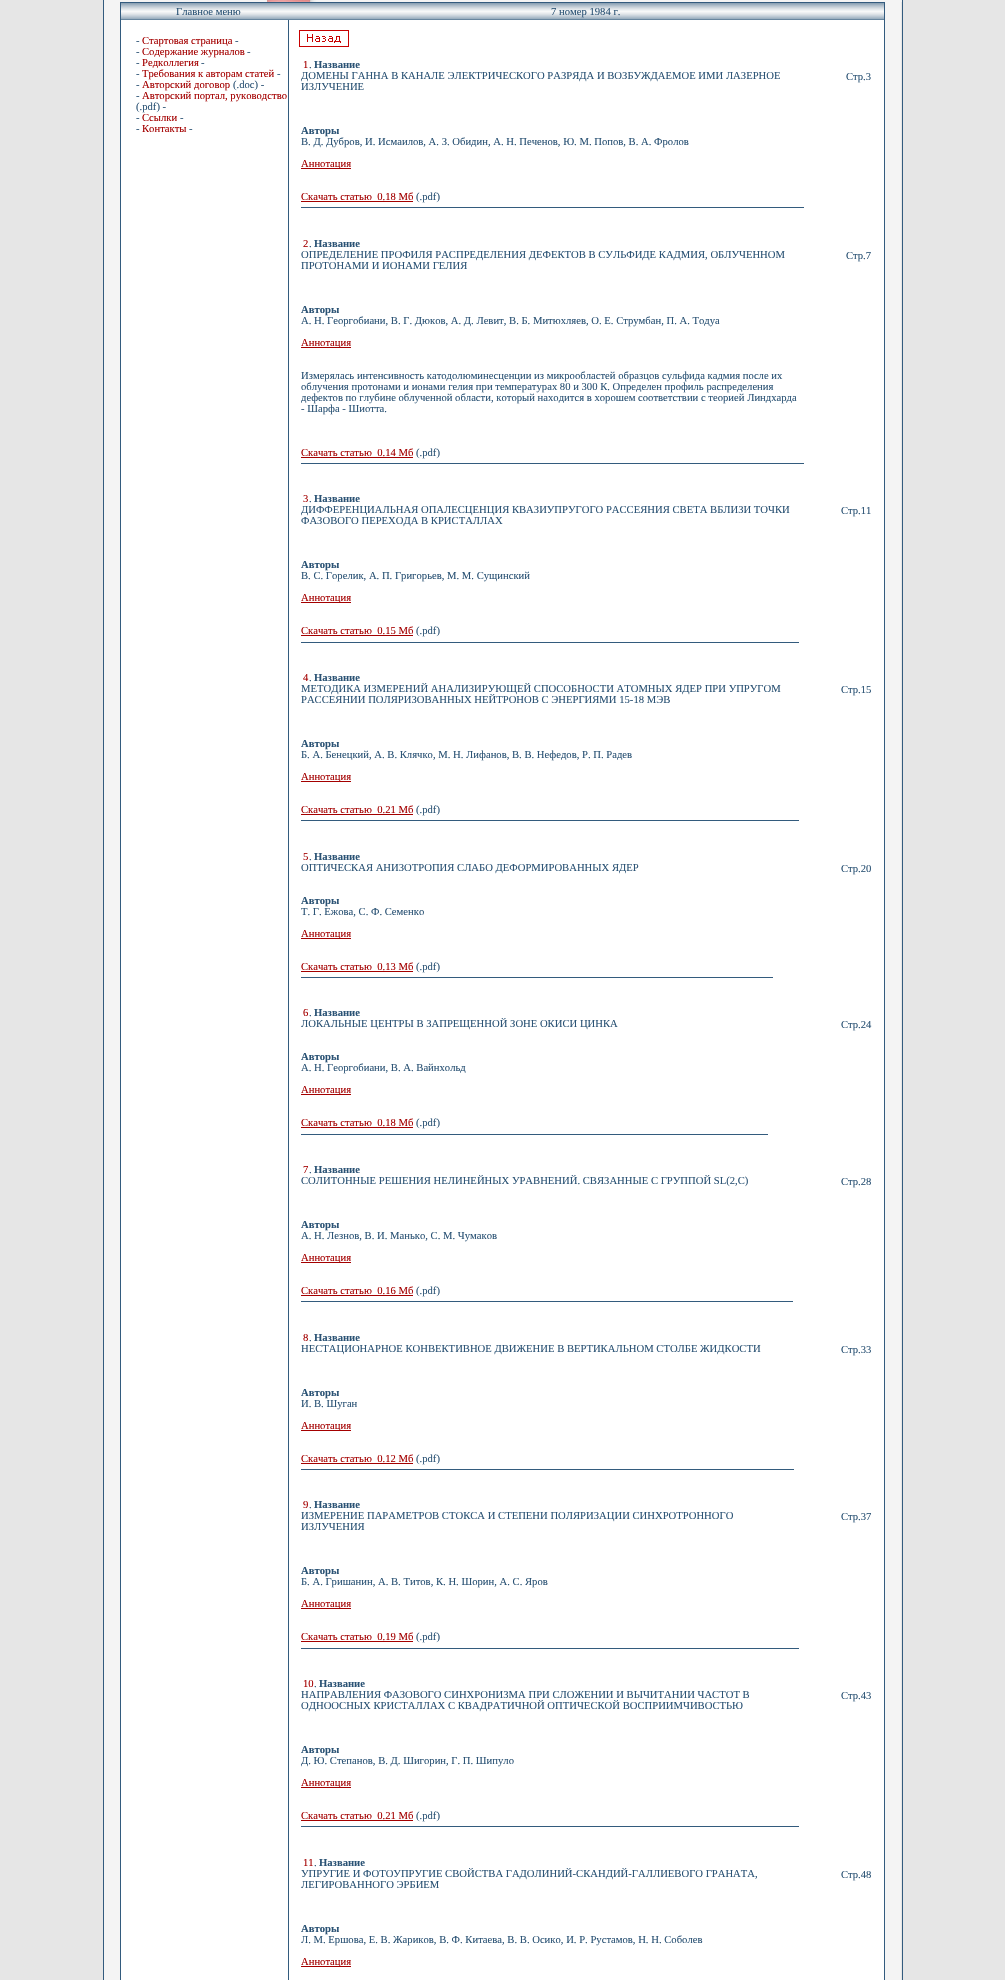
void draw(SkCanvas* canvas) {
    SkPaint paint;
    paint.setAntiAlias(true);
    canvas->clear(0xFFE6E6E6);
    paint.setStyle(SkPaint::kStroke_Style);
    paint.setStrokeWidth(1);
    paint.setColor(0xFF335B7E);
    canvas->drawRect(SkRect::MakeXYWH(103.5f, -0.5f, 799, 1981), paint);
    paint.setStyle(SkPaint::kFill_Style);
    paint.setColor(0xFFF4F4F4);
    canvas->drawRect(SkRect::MakeXYWH(104, 0, 160, 2), paint);
    canvas->drawImageRect(SkImages::DeferredFromEncodedData(SkData::MakeFromFileName("img1.png")), SkRect::MakeXYWH(264, 0, 53, 2), SkSamplingOptions());
    canvas->drawRect(SkRect::MakeXYWH(317, 0, 585, 2), paint);
    canvas->drawRect(SkRect::MakeXYWH(104, 2, 16, 1978), paint);
    paint.setStyle(SkPaint::kStroke_Style);
    paint.setColor(0xFF335B7E);
    canvas->drawRect(SkRect::MakeXYWH(120.5f, 2.5f, 764, 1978), paint);
    canvas->drawImageRect(SkImages::DeferredFromEncodedData(SkData::MakeFromFileName("img2.png")), SkRect::MakeXYWH(121, 3, 167, 17), SkSamplingOptions());
    SkFont font1(fontMgr->matchFamilyStyle("Liberation Serif", SkFontStyle::Normal()), 10.65f);
    font1.setSubpixel(true);
    paint.setStyle(SkPaint::kFill_Style);
    paint.setColor(0xFF2A5274);
    canvas->drawString("Главное меню", 176, 15, font1, paint);
    canvas->drawImageRect(SkImages::DeferredFromEncodedData(SkData::MakeFromFileName("img3.png")), SkRect::MakeXYWH(288, 3, 596, 17), SkSamplingOptions());
    canvas->drawString("7 номер 1984 г.", 551, 15, font1, paint);
    paint.setColor(0xFFFFFFFF);
    canvas->drawRect(SkRect::MakeXYWH(121, 20, 167, 1960), paint);
    paint.setColor(0xFF2A5274);
    canvas->drawString("-", 136, 44, font1, paint);
    paint.setColor(0xFFA40000);
    canvas->drawString("Стартовая страница", 142, 44, font1, paint);
    paint.setColor(0xFF2A5274);
    canvas->drawString("-", 235, 44, font1, paint);
    canvas->drawString("-", 136, 55, font1, paint);
    paint.setColor(0xFFA40000);
    canvas->drawString("Содержание журналов", 142, 55, font1, paint);
    paint.setColor(0xFF2A5274);
    canvas->drawString("-", 247, 55, font1, paint);
    canvas->drawString("-", 136, 66, font1, paint);
    paint.setColor(0xFFA40000);
    canvas->drawString("Редколлегия", 142, 66, font1, paint);
    paint.setColor(0xFF2A5274);
    canvas->drawString("-", 201, 66, font1, paint);
    canvas->drawString("-", 136, 77, font1, paint);
    paint.setColor(0xFFA40000);
    canvas->drawString("Требования к авторам статей", 142, 77, font1, paint);
    paint.setColor(0xFF2A5274);
    canvas->drawString("-", 277, 77, font1, paint);
    canvas->drawString("-", 136, 88, font1, paint);
    paint.setColor(0xFFA40000);
    canvas->drawString("Авторский договор", 142, 88, font1, paint);
    paint.setColor(0xFF2A5274);
    canvas->drawString("(.doc) -", 233, 88, font1, paint);
    canvas->drawString("-", 136, 99, font1, paint);
    paint.setColor(0xFFA40000);
    canvas->drawString("Авторский портал, руководство", 142, 99, font1, paint);
    paint.setColor(0xFF2A5274);
    canvas->drawString("(.pdf) -", 136, 110, font1, paint);
    canvas->drawString("-", 136, 121, font1, paint);
    paint.setColor(0xFFA40000);
    canvas->drawString("Ссылки", 142, 121, font1, paint);
    paint.setColor(0xFF2A5274);
    canvas->drawString("-", 180, 121, font1, paint);
    canvas->drawString("-", 136, 132, font1, paint);
    paint.setColor(0xFFA40000);
    canvas->drawString("Контакты", 142, 132, font1, paint);
    paint.setColor(0xFF2A5274);
    canvas->drawString("-", 189, 132, font1, paint);
    paint.setColor(0xFF335B7D);
    canvas->drawRect(SkRect::MakeXYWH(288, 20, 1, 1960), paint);
    paint.setColor(0xFFFFFFFF);
    canvas->drawRect(SkRect::MakeXYWH(289, 20, 595, 1960), paint);
    canvas->drawImageRect(SkImages::DeferredFromEncodedData(SkData::MakeFromFileName("img4.png")), SkRect::MakeXYWH(299, 30, 50, 17), SkSamplingOptions());
    paint.setColor(0xFFA40000);
    canvas->drawString("1", 303, 68, font1, paint);
    paint.setColor(0xFF2A5274);
    canvas->drawString(".", 309, 68, font1, paint);
    SkFont font2(fontMgr->matchFamilyStyle("Liberation Serif", SkFontStyle::Bold()), 10.65f);
    font2.setSubpixel(true);
    canvas->drawString("Название", 314, 68, font2, paint);
    canvas->drawString("ДОМЕНЫ ГАННА В КАНАЛЕ ЭЛЕКТРИЧЕСКОГО РАЗРЯДА И ВОЗБУЖДАЕМОЕ ИМИ ЛАЗЕРНОЕ", 301, 79, font1, paint);
    canvas->drawString("ИЗЛУЧЕНИЕ", 301, 90, font1, paint);
    canvas->drawString("Авторы", 301, 134, font2, paint);
    canvas->drawString("В. Д. Дубров, И. Исмаилов, А. З. Обидин, А. Н. Печенов, Ю. М. Попов, В. А. Фролов", 301, 145, font1, paint);
    paint.setColor(0xFFA40000);
    canvas->drawRect(SkRect::MakeXYWH(301, 168, 50, 1), paint);
    canvas->drawString("Аннотация", 301, 167, font1, paint);
    canvas->drawString("Скачать статью  0.18 Мб", 301, 200, font1, paint);
    canvas->drawRect(SkRect::MakeXYWH(301, 201, 112, 1), paint);
    paint.setColor(0xFF2A5274);
    canvas->drawString("(.pdf)", 416, 200, font1, paint);
    paint.setColor(0xFF335B7D);
    canvas->drawRect(SkRect::MakeXYWH(301, 207, 503, 1), paint);
    paint.setColor(0xFF2A5274);
    canvas->drawString("Стр.3", 846, 80, font1, paint);
    paint.setColor(0xFFA40000);
    canvas->drawString("2", 303, 247, font1, paint);
    paint.setColor(0xFF2A5274);
    canvas->drawString(".", 309, 247, font1, paint);
    canvas->drawString("Название", 314, 247, font2, paint);
    canvas->drawString("ОПРЕДЕЛЕНИЕ ПРОФИЛЯ РАСПРЕДЕЛЕНИЯ ДЕФЕКТОВ В СУЛЬФИДЕ КАДМИЯ, ОБЛУЧЕННОМ", 301, 258, font1, paint);
    canvas->drawString("ПРОТОНАМИ И ИОНАМИ ГЕЛИЯ", 301, 269, font1, paint);
    canvas->drawString("Авторы", 301, 313, font2, paint);
    canvas->drawString("А. Н. Георгобиани, В. Г. Дюков, А. Д. Левит, В. Б. Митюхляев, О. Е. Струмбан, П. А. Тодуа", 301, 324, font1, paint);
    paint.setColor(0xFFA40000);
    canvas->drawRect(SkRect::MakeXYWH(301, 347, 50, 1), paint);
    canvas->drawString("Аннотация", 301, 346, font1, paint);
    paint.setColor(0xFF2A5274);
    canvas->drawString("Измерялась интенсивность катодолюминесценции из микрообластей образцов сульфида кадмия после их", 301, 379, font1, paint);
    canvas->drawString("облучения протонами и ионами гелия при температурах 80 и 300 К. Определен профиль распределения", 301, 390, font1, paint);
    canvas->drawString("дефектов по глубине облученной области, который находится в хорошем соответствии с теорией Линдхарда", 301, 401, font1, paint);
    canvas->drawString("- Шарфа - Шиотта.", 301, 412, font1, paint);
    paint.setColor(0xFFA40000);
    canvas->drawString("Скачать статью  0.14 Мб", 301, 456, font1, paint);
    canvas->drawRect(SkRect::MakeXYWH(301, 457, 112, 1), paint);
    paint.setColor(0xFF2A5274);
    canvas->drawString("(.pdf)", 416, 456, font1, paint);
    paint.setColor(0xFF335B7D);
    canvas->drawRect(SkRect::MakeXYWH(301, 463, 503, 1), paint);
    paint.setColor(0xFF2A5274);
    canvas->drawString("Стр.7", 846, 259, font1, paint);
    paint.setColor(0xFFA40000);
    canvas->drawString("3", 303, 502, font1, paint);
    paint.setColor(0xFF2A5274);
    canvas->drawString(".", 309, 502, font1, paint);
    canvas->drawString("Название", 314, 502, font2, paint);
    canvas->drawString("ДИФФЕРЕНЦИАЛЬНАЯ ОПАЛЕСЦЕНЦИЯ КВАЗИУПРУГОГО РАССЕЯНИЯ СВЕТА ВБЛИЗИ ТОЧКИ", 301, 513, font1, paint);
    canvas->drawString("ФАЗОВОГО ПЕРЕХОДА В КРИСТАЛЛАХ", 301, 524, font1, paint);
    canvas->drawString("Авторы", 301, 568, font2, paint);
    canvas->drawString("В. С. Горелик, А. П. Григорьев, М. М. Сущинский", 301, 579, font1, paint);
    paint.setColor(0xFFA40000);
    canvas->drawRect(SkRect::MakeXYWH(301, 602, 50, 1), paint);
    canvas->drawString("Аннотация", 301, 601, font1, paint);
    canvas->drawString("Скачать статью  0.15 Мб", 301, 634, font1, paint);
    canvas->drawRect(SkRect::MakeXYWH(301, 635, 112, 1), paint);
    paint.setColor(0xFF2A5274);
    canvas->drawString("(.pdf)", 416, 634, font1, paint);
    paint.setColor(0xFF335B7D);
    canvas->drawRect(SkRect::MakeXYWH(301, 642, 498, 1), paint);
    paint.setColor(0xFF2A5274);
    canvas->drawString("Стр.11", 841, 514, font1, paint);
    paint.setColor(0xFFA40000);
    canvas->drawString("4", 303, 681, font1, paint);
    paint.setColor(0xFF2A5274);
    canvas->drawString(".", 309, 681, font1, paint);
    canvas->drawString("Название", 314, 681, font2, paint);
    canvas->drawString("МЕТОДИКА ИЗМЕРЕНИЙ АНАЛИЗИРУЮЩЕЙ СПОСОБНОСТИ АТОМНЫХ ЯДЕР ПРИ УПРУГОМ", 301, 692, font1, paint);
    canvas->drawString("РАССЕЯНИИ ПОЛЯРИЗОВАННЫХ НЕЙТРОНОВ С ЭНЕРГИЯМИ 15-18 МЭВ", 301, 703, font1, paint);
    canvas->drawString("Авторы", 301, 747, font2, paint);
    canvas->drawString("Б. А. Бенецкий, А. В. Клячко, М. Н. Лифанов, В. В. Нефедов, Р. П. Радев", 301, 758, font1, paint);
    paint.setColor(0xFFA40000);
    canvas->drawRect(SkRect::MakeXYWH(301, 781, 50, 1), paint);
    canvas->drawString("Аннотация", 301, 780, font1, paint);
    canvas->drawString("Скачать статью  0.21 Мб", 301, 813, font1, paint);
    canvas->drawRect(SkRect::MakeXYWH(301, 814, 112, 1), paint);
    paint.setColor(0xFF2A5274);
    canvas->drawString("(.pdf)", 416, 813, font1, paint);
    paint.setColor(0xFF335B7D);
    canvas->drawRect(SkRect::MakeXYWH(301, 820, 498, 1), paint);
    paint.setColor(0xFF2A5274);
    canvas->drawString("Стр.15", 841, 693, font1, paint);
    paint.setColor(0xFFA40000);
    canvas->drawString("5", 303, 860, font1, paint);
    paint.setColor(0xFF2A5274);
    canvas->drawString(".", 309, 860, font1, paint);
    canvas->drawString("Название", 314, 860, font2, paint);
    canvas->drawString("ОПТИЧЕСКАЯ АНИЗОТРОПИЯ СЛАБО ДЕФОРМИРОВАННЫХ ЯДЕР", 301, 871, font1, paint);
    canvas->drawString("Авторы", 301, 904, font2, paint);
    canvas->drawString("Т. Г. Ежова, С. Ф. Семенко", 301, 915, font1, paint);
    paint.setColor(0xFFA40000);
    canvas->drawRect(SkRect::MakeXYWH(301, 938, 50, 1), paint);
    canvas->drawString("Аннотация", 301, 937, font1, paint);
    canvas->drawString("Скачать статью  0.13 Мб", 301, 970, font1, paint);
    canvas->drawRect(SkRect::MakeXYWH(301, 971, 112, 1), paint);
    paint.setColor(0xFF2A5274);
    canvas->drawString("(.pdf)", 416, 970, font1, paint);
    paint.setColor(0xFF335B7D);
    canvas->drawRect(SkRect::MakeXYWH(301, 977, 472, 1), paint);
    paint.setColor(0xFF2A5274);
    canvas->drawString("Стр.20", 841, 872, font1, paint);
    paint.setColor(0xFFA40000);
    canvas->drawString("6", 303, 1016, font1, paint);
    paint.setColor(0xFF2A5274);
    canvas->drawString(".", 309, 1016, font1, paint);
    canvas->drawString("Название", 314, 1016, font2, paint);
    canvas->drawString("ЛОКАЛЬНЫЕ ЦЕНТРЫ В ЗАПРЕЩЕННОЙ ЗОНЕ ОКИСИ ЦИНКА", 301, 1027, font1, paint);
    canvas->drawString("Авторы", 301, 1060, font2, paint);
    canvas->drawString("А. Н. Георгобиани, В. А. Вайнхольд", 301, 1071, font1, paint);
    paint.setColor(0xFFA40000);
    canvas->drawRect(SkRect::MakeXYWH(301, 1094, 50, 1), paint);
    canvas->drawString("Аннотация", 301, 1093, font1, paint);
    canvas->drawString("Скачать статью  0.18 Мб", 301, 1126, font1, paint);
    canvas->drawRect(SkRect::MakeXYWH(301, 1127, 112, 1), paint);
    paint.setColor(0xFF2A5274);
    canvas->drawString("(.pdf)", 416, 1126, font1, paint);
    paint.setColor(0xFF335B7D);
    canvas->drawRect(SkRect::MakeXYWH(301, 1134, 467, 1), paint);
    paint.setColor(0xFF2A5274);
    canvas->drawString("Стр.24", 841, 1028, font1, paint);
    paint.setColor(0xFFA40000);
    canvas->drawString("7", 303, 1173, font1, paint);
    paint.setColor(0xFF2A5274);
    canvas->drawString(".", 309, 1173, font1, paint);
    canvas->drawString("Название", 314, 1173, font2, paint);
    canvas->drawString("СОЛИТОННЫЕ РЕШЕНИЯ НЕЛИНЕЙНЫХ УРАВНЕНИЙ. СВЯЗАННЫЕ С ГРУППОЙ SL(2,C)", 301, 1184, font1, paint);
    canvas->drawString("Авторы", 301, 1228, font2, paint);
    canvas->drawString("А. Н. Лезнов, В. И. Манько, С. М. Чумаков", 301, 1239, font1, paint);
    paint.setColor(0xFFA40000);
    canvas->drawRect(SkRect::MakeXYWH(301, 1262, 50, 1), paint);
    canvas->drawString("Аннотация", 301, 1261, font1, paint);
    canvas->drawString("Скачать статью  0.16 Мб", 301, 1294, font1, paint);
    canvas->drawRect(SkRect::MakeXYWH(301, 1295, 112, 1), paint);
    paint.setColor(0xFF2A5274);
    canvas->drawString("(.pdf)", 416, 1294, font1, paint);
    paint.setColor(0xFF335B7D);
    canvas->drawRect(SkRect::MakeXYWH(301, 1301, 492, 1), paint);
    paint.setColor(0xFF2A5274);
    canvas->drawString("Стр.28", 841, 1185, font1, paint);
    paint.setColor(0xFFA40000);
    canvas->drawString("8", 303, 1341, font1, paint);
    paint.setColor(0xFF2A5274);
    canvas->drawString(".", 309, 1341, font1, paint);
    canvas->drawString("Название", 314, 1341, font2, paint);
    canvas->drawString("НЕСТАЦИОНАРНОЕ КОНВЕКТИВНОЕ ДВИЖЕНИЕ В ВЕРТИКАЛЬНОМ СТОЛБЕ ЖИДКОСТИ", 301, 1352, font1, paint);
    canvas->drawString("Авторы", 301, 1396, font2, paint);
    canvas->drawString("И. В. Шуган", 301, 1407, font1, paint);
    paint.setColor(0xFFA40000);
    canvas->drawRect(SkRect::MakeXYWH(301, 1430, 50, 1), paint);
    canvas->drawString("Аннотация", 301, 1429, font1, paint);
    canvas->drawString("Скачать статью  0.12 Мб", 301, 1462, font1, paint);
    canvas->drawRect(SkRect::MakeXYWH(301, 1463, 112, 1), paint);
    paint.setColor(0xFF2A5274);
    canvas->drawString("(.pdf)", 416, 1462, font1, paint);
    paint.setColor(0xFF335B7D);
    canvas->drawRect(SkRect::MakeXYWH(301, 1469, 493, 1), paint);
    paint.setColor(0xFF2A5274);
    canvas->drawString("Стр.33", 841, 1353, font1, paint);
    paint.setColor(0xFFA40000);
    canvas->drawString("9", 303, 1508, font1, paint);
    paint.setColor(0xFF2A5274);
    canvas->drawString(".", 309, 1508, font1, paint);
    canvas->drawString("Название", 314, 1508, font2, paint);
    canvas->drawString("ИЗМЕРЕНИЕ ПАРАМЕТРОВ СТОКСА И СТЕПЕНИ ПОЛЯРИЗАЦИИ СИНХРОТРОННОГО", 301, 1519, font1, paint);
    canvas->drawString("ИЗЛУЧЕНИЯ", 301, 1530, font1, paint);
    canvas->drawString("Авторы", 301, 1574, font2, paint);
    canvas->drawString("Б. А. Гришанин, А. В. Титов, К. Н. Шорин, А. С. Яров", 301, 1585, font1, paint);
    paint.setColor(0xFFA40000);
    canvas->drawRect(SkRect::MakeXYWH(301, 1608, 50, 1), paint);
    canvas->drawString("Аннотация", 301, 1607, font1, paint);
    canvas->drawString("Скачать статью  0.19 Мб", 301, 1640, font1, paint);
    canvas->drawRect(SkRect::MakeXYWH(301, 1641, 112, 1), paint);
    paint.setColor(0xFF2A5274);
    canvas->drawString("(.pdf)", 416, 1640, font1, paint);
    paint.setColor(0xFF335B7D);
    canvas->drawRect(SkRect::MakeXYWH(301, 1648, 498, 1), paint);
    paint.setColor(0xFF2A5274);
    canvas->drawString("Стр.37", 841, 1520, font1, paint);
    paint.setColor(0xFFA40000);
    canvas->drawString("10", 303, 1687, font1, paint);
    paint.setColor(0xFF2A5274);
    canvas->drawString(".", 314, 1687, font1, paint);
    canvas->drawString("Название", 319, 1687, font2, paint);
    canvas->drawString("НАПРАВЛЕНИЯ ФАЗОВОГО СИНХРОНИЗМА ПРИ СЛОЖЕНИИ И ВЫЧИТАНИИ ЧАСТОТ В", 301, 1698, font1, paint);
    canvas->drawString("ОДНООСНЫХ КРИСТАЛЛАХ С КВАДРАТИЧНОЙ ОПТИЧЕСКОЙ ВОСПРИИМЧИВОСТЬЮ", 301, 1709, font1, paint);
    canvas->drawString("Авторы", 301, 1753, font2, paint);
    canvas->drawString("Д. Ю. Степанов, В. Д. Шигорин, Г. П. Шипуло", 301, 1764, font1, paint);
    paint.setColor(0xFFA40000);
    canvas->drawRect(SkRect::MakeXYWH(301, 1787, 50, 1), paint);
    canvas->drawString("Аннотация", 301, 1786, font1, paint);
    canvas->drawString("Скачать статью  0.21 Мб", 301, 1819, font1, paint);
    canvas->drawRect(SkRect::MakeXYWH(301, 1820, 112, 1), paint);
    paint.setColor(0xFF2A5274);
    canvas->drawString("(.pdf)", 416, 1819, font1, paint);
    paint.setColor(0xFF335B7D);
    canvas->drawRect(SkRect::MakeXYWH(301, 1826, 498, 1), paint);
    paint.setColor(0xFF2A5274);
    canvas->drawString("Стр.43", 841, 1699, font1, paint);
    paint.setColor(0xFFA40000);
    canvas->drawString("11", 303, 1866, font1, paint);
    paint.setColor(0xFF2A5274);
    canvas->drawString(".", 314, 1866, font1, paint);
    canvas->drawString("Название", 319, 1866, font2, paint);
    canvas->drawString("УПРУГИЕ И ФОТОУПРУГИЕ СВОЙСТВА ГАДОЛИНИЙ-СКАНДИЙ-ГАЛЛИЕВОГО ГРАНАТА,", 301, 1877, font1, paint);
    canvas->drawString("ЛЕГИРОВАННОГО ЭРБИЕМ", 301, 1888, font1, paint);
    canvas->drawString("Авторы", 301, 1932, font2, paint);
    canvas->drawString("Л. М. Ершова, Е. В. Жариков, В. Ф. Китаева, В. В. Осико, И. Р. Рустамов, Н. Н. Соболев", 301, 1943, font1, paint);
    paint.setColor(0xFFA40000);
    canvas->drawRect(SkRect::MakeXYWH(301, 1966, 50, 1), paint);
    canvas->drawString("Аннотация", 301, 1965, font1, paint);
    paint.setColor(0xFF2A5274);
    canvas->drawString("Стр.48", 841, 1878, font1, paint);
    paint.setColor(0xFFF4F4F4);
    canvas->drawRect(SkRect::MakeXYWH(885, 2, 16, 1978), paint);
}
